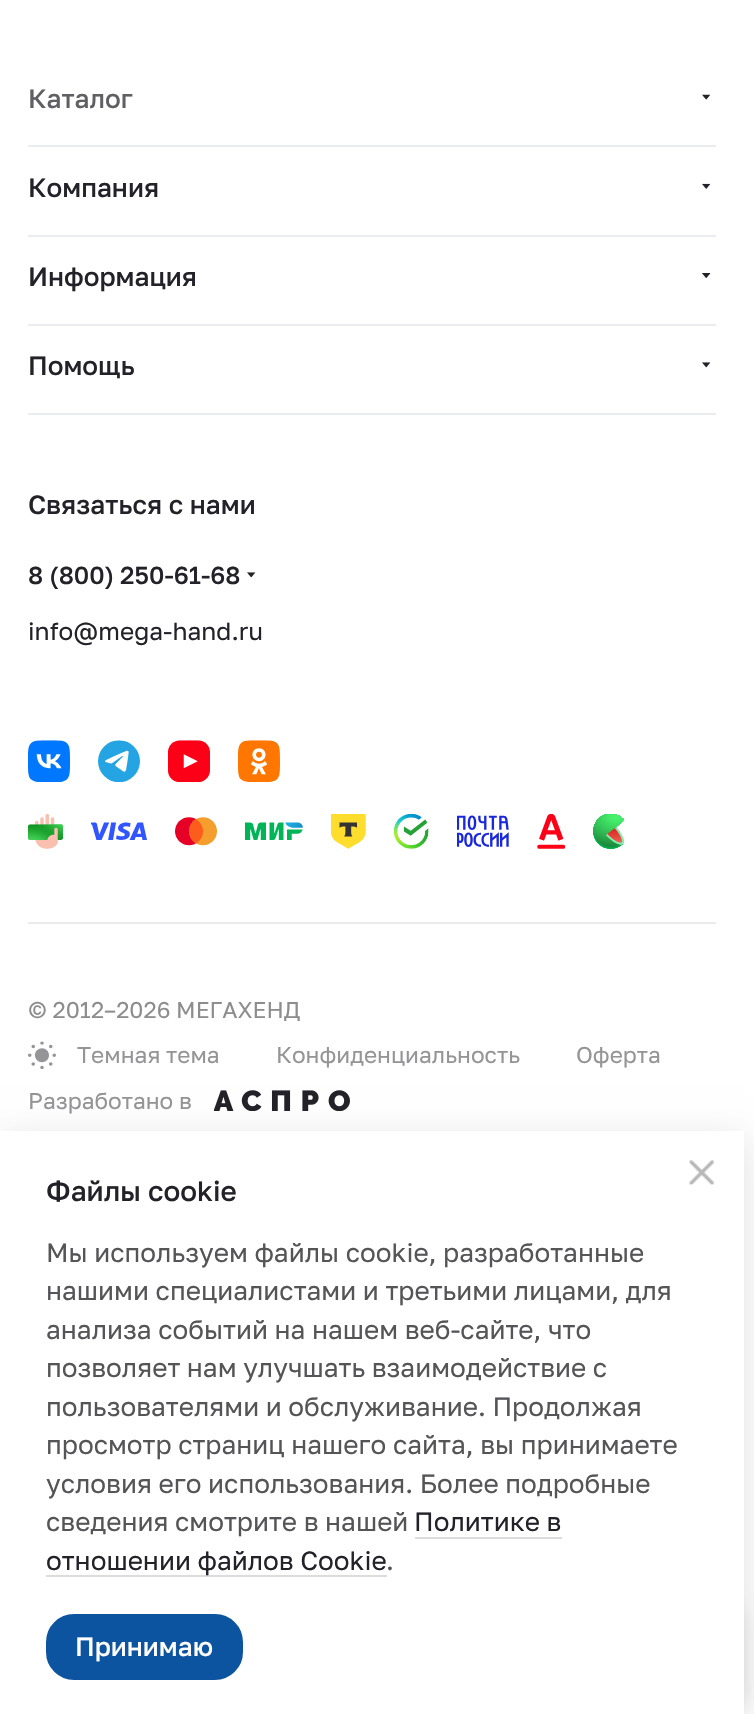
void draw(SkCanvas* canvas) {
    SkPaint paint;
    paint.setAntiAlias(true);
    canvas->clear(0xFFFFFFFF);
    paint.setColor(0xFFEBECEF);
    canvas->drawRect(SkRect::MakeXYWH(28, 145, 688, 2), paint);
    SkFont font1(fontMgr->matchFamilyStyle("Golos Text", SkFontStyle(500, SkFontStyle::kNormal_Width, SkFontStyle::kUpright_Slant)), 26.25f);
    font1.setSubpixel(true);
    paint.setColor(0xFF606064);
    canvas->drawString("Каталог", 28, 108, font1, paint);
    canvas->drawImageRect(SkImages::DeferredFromEncodedData(SkData::MakeFromFileName("img1.png")), SkRect::MakeXYWH(702, 94, 9, 6), SkSamplingOptions());
    paint.setColor(0xFFEBECEF);
    canvas->drawRect(SkRect::MakeXYWH(28, 235, 688, 2), paint);
    paint.setColor(0xFF222228);
    canvas->drawString("Компания", 28, 197, font1, paint);
    canvas->drawImageRect(SkImages::DeferredFromEncodedData(SkData::MakeFromFileName("img2.png")), SkRect::MakeXYWH(702, 183, 9, 6), SkSamplingOptions());
    paint.setColor(0xFFEBECEF);
    canvas->drawRect(SkRect::MakeXYWH(28, 324, 688, 2), paint);
    paint.setColor(0xFF222228);
    canvas->drawString("Информация", 28, 286, font1, paint);
    canvas->drawImageRect(SkImages::DeferredFromEncodedData(SkData::MakeFromFileName("img3.png")), SkRect::MakeXYWH(702, 273, 9, 5), SkSamplingOptions());
    paint.setColor(0xFFEBECEF);
    canvas->drawRect(SkRect::MakeXYWH(28, 413, 688, 2), paint);
    paint.setColor(0xFF222228);
    canvas->drawString("Помощь", 28, 375, font1, paint);
    canvas->drawImageRect(SkImages::DeferredFromEncodedData(SkData::MakeFromFileName("img4.png")), SkRect::MakeXYWH(702, 362, 9, 6), SkSamplingOptions());
    canvas->drawString("Связаться с нами", 28, 514, font1, paint);
    SkFont font2(fontMgr->matchFamilyStyle("Golos Text", SkFontStyle(500, SkFontStyle::kNormal_Width, SkFontStyle::kUpright_Slant)), 24.5f);
    font2.setSubpixel(true);
    canvas->drawString("8 (800) 250-61-68", 28, 584, font2, paint);
    canvas->drawImageRect(SkImages::DeferredFromEncodedData(SkData::MakeFromFileName("img5.png")), SkRect::MakeXYWH(247, 572, 9, 6), SkSamplingOptions());
    SkFont font3(fontMgr->matchFamilyStyle("Golos Text", SkFontStyle::Normal()), 24.5f);
    font3.setSubpixel(true);
    canvas->drawString("info@mega-hand.ru", 28, 640, font3, paint);
    canvas->drawImageRect(SkImages::DeferredFromEncodedData(SkData::MakeFromFileName("img6.png")), SkRect::MakeXYWH(28, 740, 42, 42), SkSamplingOptions());
    canvas->drawImageRect(SkImages::DeferredFromEncodedData(SkData::MakeFromFileName("img7.png")), SkRect::MakeXYWH(98, 740, 42, 42), SkSamplingOptions());
    canvas->drawImageRect(SkImages::DeferredFromEncodedData(SkData::MakeFromFileName("img8.png")), SkRect::MakeXYWH(168, 740, 42, 42), SkSamplingOptions());
    canvas->drawImageRect(SkImages::DeferredFromEncodedData(SkData::MakeFromFileName("img9.png")), SkRect::MakeXYWH(238, 740, 42, 42), SkSamplingOptions());
    canvas->drawImageRect(SkImages::DeferredFromEncodedData(SkData::MakeFromFileName("img10.png")), SkRect::MakeXYWH(28, 814, 35, 35), SkSamplingOptions());
    canvas->drawImageRect(SkImages::DeferredFromEncodedData(SkData::MakeFromFileName("img11.png")), SkRect::MakeXYWH(91, 822, 56, 18), SkSamplingOptions());
    canvas->drawImageRect(SkImages::DeferredFromEncodedData(SkData::MakeFromFileName("img12.png")), SkRect::MakeXYWH(175, 817, 42, 29), SkSamplingOptions());
    canvas->drawImageRect(SkImages::DeferredFromEncodedData(SkData::MakeFromFileName("img13.png")), SkRect::MakeXYWH(245, 822, 58, 18), SkSamplingOptions());
    canvas->drawImageRect(SkImages::DeferredFromEncodedData(SkData::MakeFromFileName("img14.png")), SkRect::MakeXYWH(331, 814, 35, 35), SkSamplingOptions());
    canvas->drawImageRect(SkImages::DeferredFromEncodedData(SkData::MakeFromFileName("img15.png")), SkRect::MakeXYWH(394, 814, 35, 35), SkSamplingOptions());
    canvas->drawImageRect(SkImages::DeferredFromEncodedData(SkData::MakeFromFileName("img16.png")), SkRect::MakeXYWH(457, 815, 52, 32), SkSamplingOptions());
    canvas->drawImageRect(SkImages::DeferredFromEncodedData(SkData::MakeFromFileName("img17.png")), SkRect::MakeXYWH(537, 814, 28, 35), SkSamplingOptions());
    canvas->drawImageRect(SkImages::DeferredFromEncodedData(SkData::MakeFromFileName("img18.png")), SkRect::MakeXYWH(593, 814, 31, 35), SkSamplingOptions());
    paint.setColor(0xFFEBEBEE);
    canvas->drawRect(SkRect::MakeXYWH(28, 922, 688, 2), paint);
    SkFont font4(fontMgr->matchFamilyStyle("Golos Text", SkFontStyle::Normal()), 22.75f);
    font4.setSubpixel(true);
    paint.setColor(0xFF8D8D8D);
    canvas->drawString("© 2012–2026 МЕГАХЕНД", 28, 1018, font4, paint);
    canvas->drawImageRect(SkImages::DeferredFromEncodedData(SkData::MakeFromFileName("img19.png")), SkRect::MakeXYWH(28, 1041, 28, 28), SkSamplingOptions());
    paint.setColor(0xFF959598);
    canvas->drawString("Темная тема", 77, 1063, font4, paint);
    canvas->drawString("Конфиденциальность", 276, 1063, font4, paint);
    canvas->drawString("Оферта", 576, 1063, font4, paint);
    canvas->drawString("Разработано в", 28, 1109, font4, paint);
    canvas->drawImageRect(SkImages::DeferredFromEncodedData(SkData::MakeFromFileName("img20.png")), SkRect::MakeXYWH(214, 1090, 136, 21), SkSamplingOptions());
    paint.setColor(0x1F000000);
    paint.setMaskFilter(SkMaskFilter::MakeBlur(kNormal_SkBlurStyle, 17.5f));
    canvas->drawRect(SkRect::MakeXYWH(0, 1139, 744, 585), paint);
    paint.setMaskFilter(nullptr);
    paint.setColor(0x1A000000);
    paint.setMaskFilter(SkMaskFilter::MakeBlur(kNormal_SkBlurStyle, 9));
    canvas->drawRoundRect(SkRect::MakeXYWH(0, 1603, 744, 107), 21, 21, paint);
    paint.setMaskFilter(nullptr);
    paint.setColor(0xFFFFFFFF);
    canvas->drawRect(SkRect::MakeXYWH(0, 1131, 744, 583), paint);
    canvas->drawImageRect(SkImages::DeferredFromEncodedData(SkData::MakeFromFileName("img21.png")), SkRect::MakeXYWH(689, 1160, 26, 25), SkSamplingOptions());
    SkFont font5(fontMgr->matchFamilyStyle("Golos Text", SkFontStyle(500, SkFontStyle::kNormal_Width, SkFontStyle::kUpright_Slant)), 28);
    font5.setSubpixel(true);
    paint.setColor(0xFF222228);
    canvas->drawString("Файлы cookie", 46, 1201, font5, paint);
    SkFont font6(fontMgr->matchFamilyStyle("Golos Text", SkFontStyle::Normal()), 26.25f);
    font6.setSubpixel(true);
    paint.setColor(0xFF555558);
    canvas->drawString("Мы используем файлы cookie, разработанные", 46, 1262, font6, paint);
    canvas->drawString("нашими специалистами и третьими лицами, для", 46, 1300, font6, paint);
    canvas->drawString("анализа событий на нашем веб-сайте, что", 46, 1339, font6, paint);
    canvas->drawString("позволяет нам улучшать взаимодействие с", 46, 1377, font6, paint);
    canvas->drawString("пользователями и обслуживание. Продолжая", 46, 1416, font6, paint);
    canvas->drawString("просмотр страниц нашего сайта, вы принимаете", 46, 1454, font6, paint);
    canvas->drawString("условия его использования. Более подробные", 46, 1493, font6, paint);
    canvas->drawString("сведения смотрите в нашей", 46, 1531, font6, paint);
    paint.setColor(0xFF222228);
    canvas->drawString("Политике в", 414, 1531, font6, paint);
    paint.setColor(0xFFDCDCDD);
    canvas->drawRect(SkRect::MakeXYWH(415, 1537, 147, 2), paint);
    canvas->drawRect(SkRect::MakeXYWH(46, 1575, 341, 2), paint);
    paint.setColor(0xFF222228);
    canvas->drawString("отношении файлов Cookie", 46, 1570, font6, paint);
    paint.setColor(0xFF555558);
    canvas->drawString(".", 386, 1570, font6, paint);
    paint.setColor(0xFF0C54A0);
    canvas->drawRoundRect(SkRect::MakeXYWH(47, 1615, 195, 64), 27, 27, paint);
    paint.setStyle(SkPaint::kStroke_Style);
    paint.setStrokeWidth(2);
    canvas->drawRoundRect(SkRect::MakeXYWH(47, 1615, 195, 64), 27, 27, paint);
    paint.setStyle(SkPaint::kFill_Style);
    paint.setColor(0xFFFFFFFF);
    canvas->drawString("Принимаю", 75, 1656, font1, paint);
}
